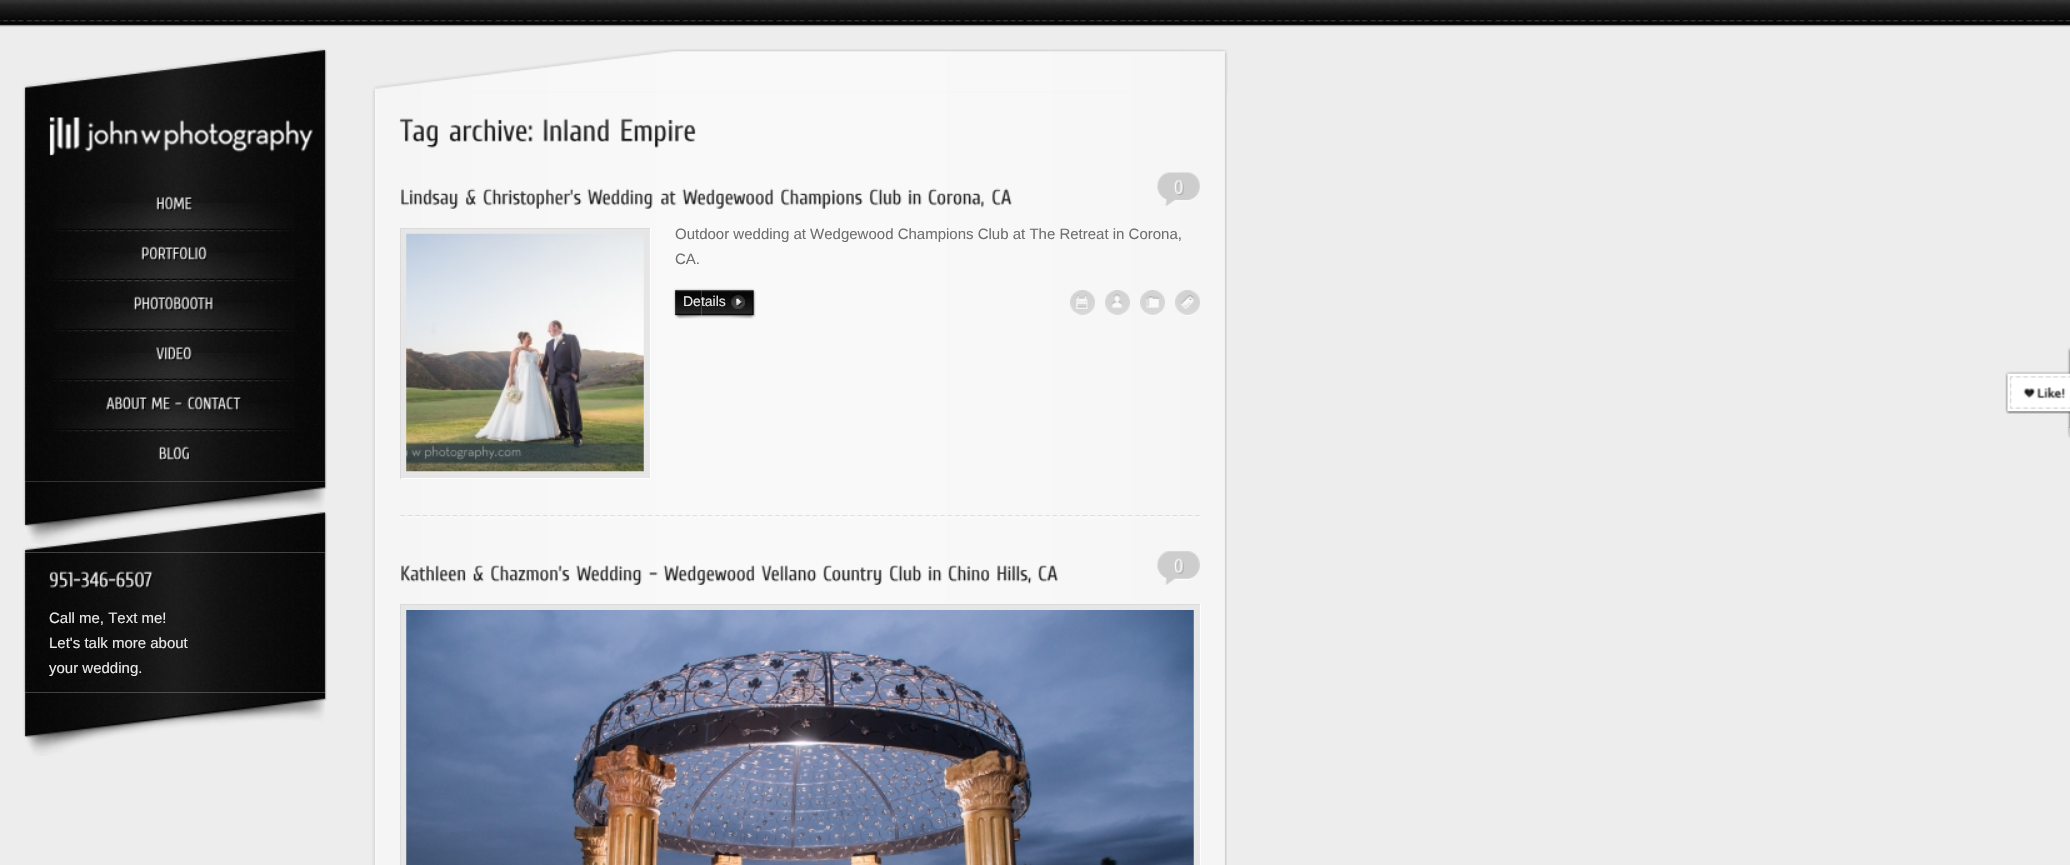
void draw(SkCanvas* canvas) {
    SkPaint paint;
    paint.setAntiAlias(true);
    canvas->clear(0xFFEDEDED);
    canvas->drawImageRect(SkImages::DeferredFromEncodedData(SkData::MakeFromFileName("img1.png")), SkRect::MakeXYWH(0, 0, 2070, 27), SkSamplingOptions());
    canvas->drawImageRect(SkImages::DeferredFromEncodedData(SkData::MakeFromFileName("img3.png")), SkRect::MakeXYWH(372, 91, 855, 774), SkSamplingOptions());
    canvas->drawImageRect(SkImages::DeferredFromEncodedData(SkData::MakeFromFileName("img2.png")), SkRect::MakeXYWH(373, 49, 855, 43), SkSamplingOptions());
    canvas->drawImageRect(SkImages::DeferredFromEncodedData(SkData::MakeFromFileName("img4.png")), SkRect::MakeXYWH(399, 118, 39, 30), SkSamplingOptions());
    canvas->drawImageRect(SkImages::DeferredFromEncodedData(SkData::MakeFromFileName("img5.png")), SkRect::MakeXYWH(449, 118, 84, 24), SkSamplingOptions());
    canvas->drawImageRect(SkImages::DeferredFromEncodedData(SkData::MakeFromFileName("img6.png")), SkRect::MakeXYWH(543, 118, 66, 24), SkSamplingOptions());
    canvas->drawImageRect(SkImages::DeferredFromEncodedData(SkData::MakeFromFileName("img7.png")), SkRect::MakeXYWH(621, 118, 75, 30), SkSamplingOptions());
    canvas->drawImageRect(SkImages::DeferredFromEncodedData(SkData::MakeFromFileName("img8.png")), SkRect::MakeXYWH(401, 188, 57, 21), SkSamplingOptions());
    canvas->drawImageRect(SkImages::DeferredFromEncodedData(SkData::MakeFromFileName("img9.png")), SkRect::MakeXYWH(465, 188, 12, 18), SkSamplingOptions());
    canvas->drawImageRect(SkImages::DeferredFromEncodedData(SkData::MakeFromFileName("img10.png")), SkRect::MakeXYWH(483, 188, 99, 21), SkSamplingOptions());
    canvas->drawImageRect(SkImages::DeferredFromEncodedData(SkData::MakeFromFileName("img11.png")), SkRect::MakeXYWH(587, 188, 66, 21), SkSamplingOptions());
    canvas->drawImageRect(SkImages::DeferredFromEncodedData(SkData::MakeFromFileName("img12.png")), SkRect::MakeXYWH(661, 191, 16, 15), SkSamplingOptions());
    canvas->drawImageRect(SkImages::DeferredFromEncodedData(SkData::MakeFromFileName("img13.png")), SkRect::MakeXYWH(682, 188, 92, 21), SkSamplingOptions());
    canvas->drawImageRect(SkImages::DeferredFromEncodedData(SkData::MakeFromFileName("img14.png")), SkRect::MakeXYWH(781, 188, 82, 21), SkSamplingOptions());
    canvas->drawImageRect(SkImages::DeferredFromEncodedData(SkData::MakeFromFileName("img15.png")), SkRect::MakeXYWH(869, 188, 33, 18), SkSamplingOptions());
    canvas->drawImageRect(SkImages::DeferredFromEncodedData(SkData::MakeFromFileName("img16.png")), SkRect::MakeXYWH(908, 189, 14, 17), SkSamplingOptions());
    canvas->drawImageRect(SkImages::DeferredFromEncodedData(SkData::MakeFromFileName("img17.png")), SkRect::MakeXYWH(928, 188, 56, 20), SkSamplingOptions());
    canvas->drawImageRect(SkImages::DeferredFromEncodedData(SkData::MakeFromFileName("img18.png")), SkRect::MakeXYWH(992, 188, 20, 18), SkSamplingOptions());
    canvas->drawImageRect(SkImages::DeferredFromEncodedData(SkData::MakeFromFileName("img19.png")), SkRect::MakeXYWH(1157, 172, 43, 34), SkSamplingOptions());
    canvas->drawImageRect(SkImages::DeferredFromEncodedData(SkData::MakeFromFileName("img20.png")), SkRect::MakeXYWH(1174, 180, 10, 16), SkSamplingOptions());
    paint.setColor(0xFFE6E6E6);
    canvas->drawRect(SkRect::MakeXYWH(401, 229, 249, 249), paint);
    paint.setColor(0xFFDADADA);
    canvas->drawRect(SkRect::MakeXYWH(400, 228, 251, 1), paint);
    paint.setColor(0xFFFFFFFF);
    canvas->drawRect(SkRect::MakeXYWH(650, 228, 1, 251), paint);
    canvas->drawRect(SkRect::MakeXYWH(400, 478, 251, 1), paint);
    paint.setColor(0xFFDADADA);
    canvas->drawRect(SkRect::MakeXYWH(400, 228, 1, 251), paint);
    canvas->drawImageRect(SkImages::DeferredFromEncodedData(SkData::MakeFromFileName("img21.png")), SkRect::MakeXYWH(406, 233, 238, 239), SkSamplingOptions());
    SkFont font1(fontMgr->matchFamilyStyle("Liberation Sans", SkFontStyle::Normal()), 15);
    font1.setSubpixel(true);
    paint.setColor(0xFF6F6F6F);
    canvas->drawString("Outdoor wedding at Wedgewood Champions Club at The Retreat in Corona,", 675, 239, font1, paint);
    canvas->drawString("CA.", 675, 264, font1, paint);
    canvas->drawImageRect(SkImages::DeferredFromEncodedData(SkData::MakeFromFileName("img22.png")), SkRect::MakeXYWH(673, 288, 29, 31), SkSamplingOptions());
    canvas->drawImageRect(SkImages::DeferredFromEncodedData(SkData::MakeFromFileName("img23.png")), SkRect::MakeXYWH(701, 288, 55, 31), SkSamplingOptions());
    SkFont font2(fontMgr->matchFamilyStyle("Liberation Sans", SkFontStyle::Normal()), 14);
    font2.setSubpixel(true);
    paint.setColor(0xFFE9E9E9);
    canvas->drawString("Details", 683, 306, font2, paint);
    canvas->drawImageRect(SkImages::DeferredFromEncodedData(SkData::MakeFromFileName("img24.png")), SkRect::MakeXYWH(731, 294, 14, 15), SkSamplingOptions());
    canvas->drawImageRect(SkImages::DeferredFromEncodedData(SkData::MakeFromFileName("img25.png")), SkRect::MakeXYWH(1070, 290, 25, 25), SkSamplingOptions());
    canvas->drawImageRect(SkImages::DeferredFromEncodedData(SkData::MakeFromFileName("img26.png")), SkRect::MakeXYWH(1105, 290, 25, 25), SkSamplingOptions());
    canvas->drawImageRect(SkImages::DeferredFromEncodedData(SkData::MakeFromFileName("img27.png")), SkRect::MakeXYWH(1140, 290, 25, 26), SkSamplingOptions());
    canvas->drawImageRect(SkImages::DeferredFromEncodedData(SkData::MakeFromFileName("img28.png")), SkRect::MakeXYWH(1175, 290, 25, 26), SkSamplingOptions());
    canvas->drawImageRect(SkImages::DeferredFromEncodedData(SkData::MakeFromFileName("img29.png")), SkRect::MakeXYWH(400, 515, 800, 3), SkSamplingOptions());
    canvas->drawImageRect(SkImages::DeferredFromEncodedData(SkData::MakeFromFileName("img30.png")), SkRect::MakeXYWH(401, 565, 65, 17), SkSamplingOptions());
    canvas->drawImageRect(SkImages::DeferredFromEncodedData(SkData::MakeFromFileName("img31.png")), SkRect::MakeXYWH(473, 565, 11, 17), SkSamplingOptions());
    canvas->drawImageRect(SkImages::DeferredFromEncodedData(SkData::MakeFromFileName("img32.png")), SkRect::MakeXYWH(491, 565, 79, 17), SkSamplingOptions());
    canvas->drawImageRect(SkImages::DeferredFromEncodedData(SkData::MakeFromFileName("img33.png")), SkRect::MakeXYWH(576, 565, 66, 20), SkSamplingOptions());
    canvas->drawImageRect(SkImages::DeferredFromEncodedData(SkData::MakeFromFileName("img34.png")), SkRect::MakeXYWH(648, 572, 10, 4), SkSamplingOptions());
    canvas->drawImageRect(SkImages::DeferredFromEncodedData(SkData::MakeFromFileName("img35.png")), SkRect::MakeXYWH(663, 565, 92, 20), SkSamplingOptions());
    canvas->drawImageRect(SkImages::DeferredFromEncodedData(SkData::MakeFromFileName("img36.png")), SkRect::MakeXYWH(761, 565, 56, 17), SkSamplingOptions());
    canvas->drawImageRect(SkImages::DeferredFromEncodedData(SkData::MakeFromFileName("img37.png")), SkRect::MakeXYWH(823, 565, 59, 20), SkSamplingOptions());
    canvas->drawImageRect(SkImages::DeferredFromEncodedData(SkData::MakeFromFileName("img38.png")), SkRect::MakeXYWH(889, 565, 33, 17), SkSamplingOptions());
    canvas->drawImageRect(SkImages::DeferredFromEncodedData(SkData::MakeFromFileName("img39.png")), SkRect::MakeXYWH(928, 566, 14, 16), SkSamplingOptions());
    canvas->drawImageRect(SkImages::DeferredFromEncodedData(SkData::MakeFromFileName("img40.png")), SkRect::MakeXYWH(948, 565, 42, 17), SkSamplingOptions());
    canvas->drawImageRect(SkImages::DeferredFromEncodedData(SkData::MakeFromFileName("img41.png")), SkRect::MakeXYWH(997, 565, 35, 19), SkSamplingOptions());
    canvas->drawImageRect(SkImages::DeferredFromEncodedData(SkData::MakeFromFileName("img42.png")), SkRect::MakeXYWH(1038, 565, 20, 17), SkSamplingOptions());
    canvas->drawImageRect(SkImages::DeferredFromEncodedData(SkData::MakeFromFileName("img43.png")), SkRect::MakeXYWH(1157, 551, 43, 34), SkSamplingOptions());
    canvas->drawImageRect(SkImages::DeferredFromEncodedData(SkData::MakeFromFileName("img44.png")), SkRect::MakeXYWH(1174, 558, 10, 16), SkSamplingOptions());
    paint.setColor(0xFFE6E6E6);
    canvas->drawRect(SkRect::MakeXYWH(401, 605, 799, 260), paint);
    paint.setColor(0xFFDADADA);
    canvas->drawRect(SkRect::MakeXYWH(400, 604, 801, 1), paint);
    paint.setColor(0xFFFFFFFF);
    canvas->drawRect(SkRect::MakeXYWH(1200, 604, 1, 261), paint);
    paint.setColor(0xFFDADADA);
    canvas->drawRect(SkRect::MakeXYWH(400, 604, 1, 261), paint);
    canvas->drawImageRect(SkImages::DeferredFromEncodedData(SkData::MakeFromFileName("img45.png")), SkRect::MakeXYWH(406, 610, 788, 255), SkSamplingOptions());
    canvas->drawImageRect(SkImages::DeferredFromEncodedData(SkData::MakeFromFileName("img46.png")), SkRect::MakeXYWH(23, 48, 304, 42), SkSamplingOptions());
    canvas->drawImageRect(SkImages::DeferredFromEncodedData(SkData::MakeFromFileName("img63.png")), SkRect::MakeXYWH(23, 481, 304, 63), SkSamplingOptions());
    canvas->drawImageRect(SkImages::DeferredFromEncodedData(SkData::MakeFromFileName("img47.png")), SkRect::MakeXYWH(23, 90, 304, 392), SkSamplingOptions());
    canvas->drawImageRect(SkImages::DeferredFromEncodedData(SkData::MakeFromFileName("img48.png")), SkRect::MakeXYWH(49, 117, 264, 39), SkSamplingOptions());
    canvas->drawImageRect(SkImages::DeferredFromEncodedData(SkData::MakeFromFileName("img49.png")), SkRect::MakeXYWH(53, 203, 242, 29), SkSamplingOptions());
    canvas->drawImageRect(SkImages::DeferredFromEncodedData(SkData::MakeFromFileName("img50.png")), SkRect::MakeXYWH(156, 196, 37, 15), SkSamplingOptions());
    canvas->drawImageRect(SkImages::DeferredFromEncodedData(SkData::MakeFromFileName("img51.png")), SkRect::MakeXYWH(53, 253, 242, 29), SkSamplingOptions());
    canvas->drawImageRect(SkImages::DeferredFromEncodedData(SkData::MakeFromFileName("img52.png")), SkRect::MakeXYWH(141, 246, 67, 15), SkSamplingOptions());
    canvas->drawImageRect(SkImages::DeferredFromEncodedData(SkData::MakeFromFileName("img53.png")), SkRect::MakeXYWH(53, 303, 242, 29), SkSamplingOptions());
    canvas->drawImageRect(SkImages::DeferredFromEncodedData(SkData::MakeFromFileName("img54.png")), SkRect::MakeXYWH(133, 296, 81, 15), SkSamplingOptions());
    canvas->drawImageRect(SkImages::DeferredFromEncodedData(SkData::MakeFromFileName("img55.png")), SkRect::MakeXYWH(53, 353, 242, 29), SkSamplingOptions());
    canvas->drawImageRect(SkImages::DeferredFromEncodedData(SkData::MakeFromFileName("img56.png")), SkRect::MakeXYWH(156, 346, 37, 15), SkSamplingOptions());
    canvas->drawImageRect(SkImages::DeferredFromEncodedData(SkData::MakeFromFileName("img57.png")), SkRect::MakeXYWH(53, 403, 242, 29), SkSamplingOptions());
    canvas->drawImageRect(SkImages::DeferredFromEncodedData(SkData::MakeFromFileName("img58.png")), SkRect::MakeXYWH(106, 396, 42, 15), SkSamplingOptions());
    canvas->drawImageRect(SkImages::DeferredFromEncodedData(SkData::MakeFromFileName("img59.png")), SkRect::MakeXYWH(151, 397, 21, 14), SkSamplingOptions());
    canvas->drawImageRect(SkImages::DeferredFromEncodedData(SkData::MakeFromFileName("img60.png")), SkRect::MakeXYWH(175, 402, 8, 4), SkSamplingOptions());
    canvas->drawImageRect(SkImages::DeferredFromEncodedData(SkData::MakeFromFileName("img61.png")), SkRect::MakeXYWH(187, 396, 55, 15), SkSamplingOptions());
    canvas->drawImageRect(SkImages::DeferredFromEncodedData(SkData::MakeFromFileName("img62.png")), SkRect::MakeXYWH(158, 446, 32, 15), SkSamplingOptions());
    canvas->drawImageRect(SkImages::DeferredFromEncodedData(SkData::MakeFromFileName("img64.png")), SkRect::MakeXYWH(23, 511, 304, 42), SkSamplingOptions());
    canvas->drawImageRect(SkImages::DeferredFromEncodedData(SkData::MakeFromFileName("img67.png")), SkRect::MakeXYWH(23, 692, 304, 64), SkSamplingOptions());
    canvas->drawImageRect(SkImages::DeferredFromEncodedData(SkData::MakeFromFileName("img65.png")), SkRect::MakeXYWH(23, 552, 304, 141), SkSamplingOptions());
    canvas->drawImageRect(SkImages::DeferredFromEncodedData(SkData::MakeFromFileName("img66.png")), SkRect::MakeXYWH(49, 571, 104, 18), SkSamplingOptions());
    paint.setColor(0xFFE9E9E9);
    canvas->drawString("Call me, Text me!", 49, 623, font1, paint);
    canvas->drawString("Let's talk more about", 49, 648, font1, paint);
    canvas->drawString("your wedding.", 49, 673, font1, paint);
    canvas->drawImageRect(SkImages::DeferredFromEncodedData(SkData::MakeFromFileName("img68.png")), SkRect::MakeXYWH(2005, 347, 65, 81), SkSamplingOptions());
    canvas->drawImageRect(SkImages::DeferredFromEncodedData(SkData::MakeFromFileName("img69.png")), SkRect::MakeXYWH(2023, 387, 43, 12), SkSamplingOptions());
    canvas->drawImageRect(SkImages::DeferredFromEncodedData(SkData::MakeFromFileName("img70.png")), SkRect::MakeXYWH(2067, 427, 3, 11), SkSamplingOptions());
}
